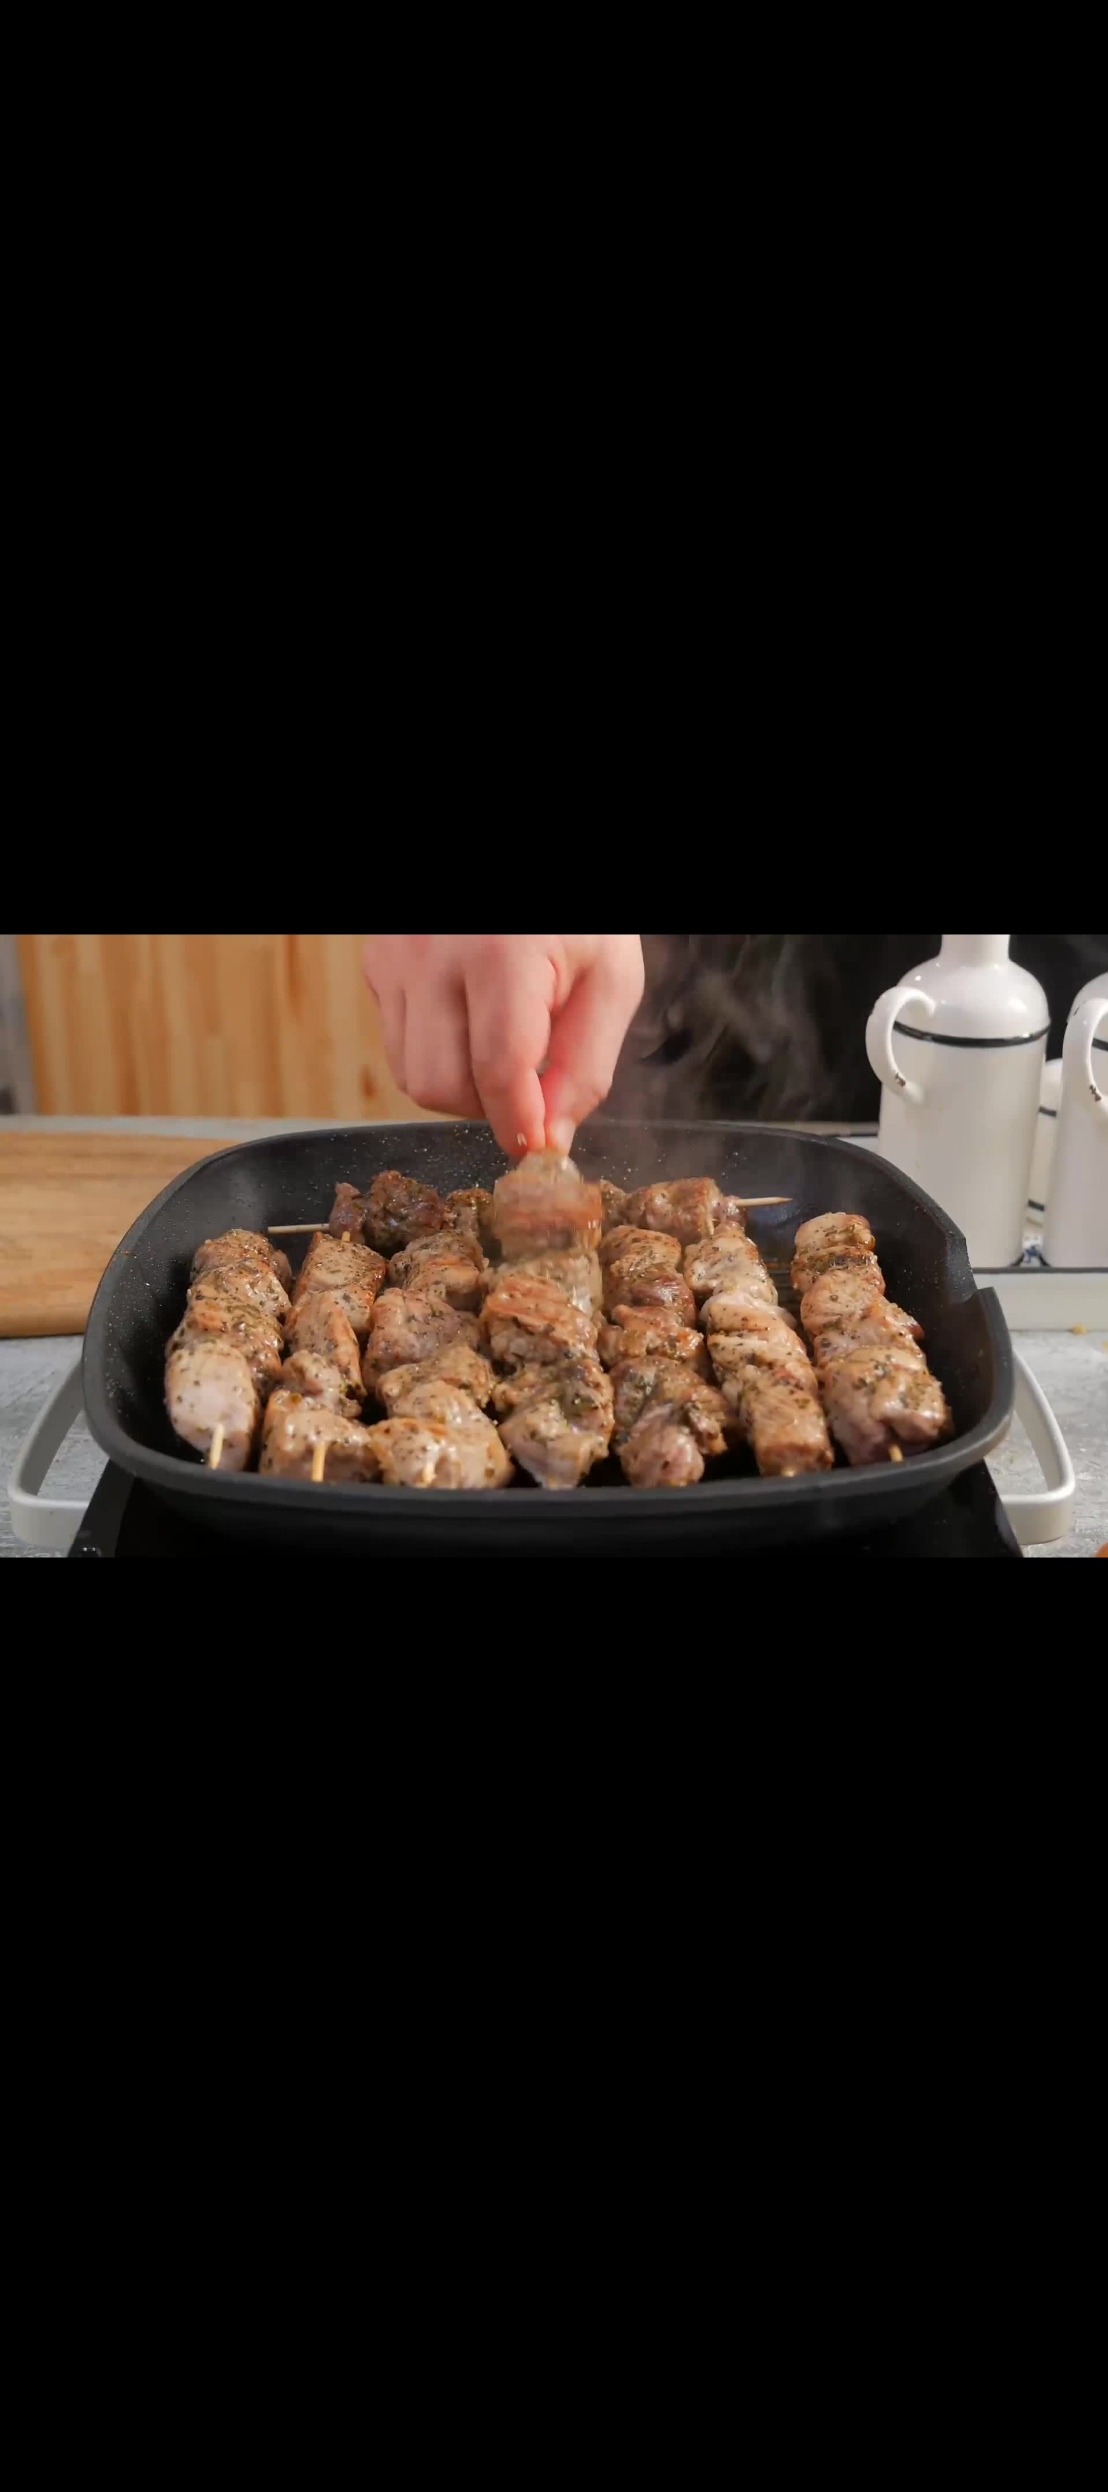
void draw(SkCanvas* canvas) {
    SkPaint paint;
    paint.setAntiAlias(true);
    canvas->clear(0xFF000000);
    canvas->drawImageRect(SkImages::DeferredFromEncodedData(SkData::MakeFromFileName("img1.png")), SkRect::MakeXYWH(0, 934, 1108, 624), SkSamplingOptions());
}
